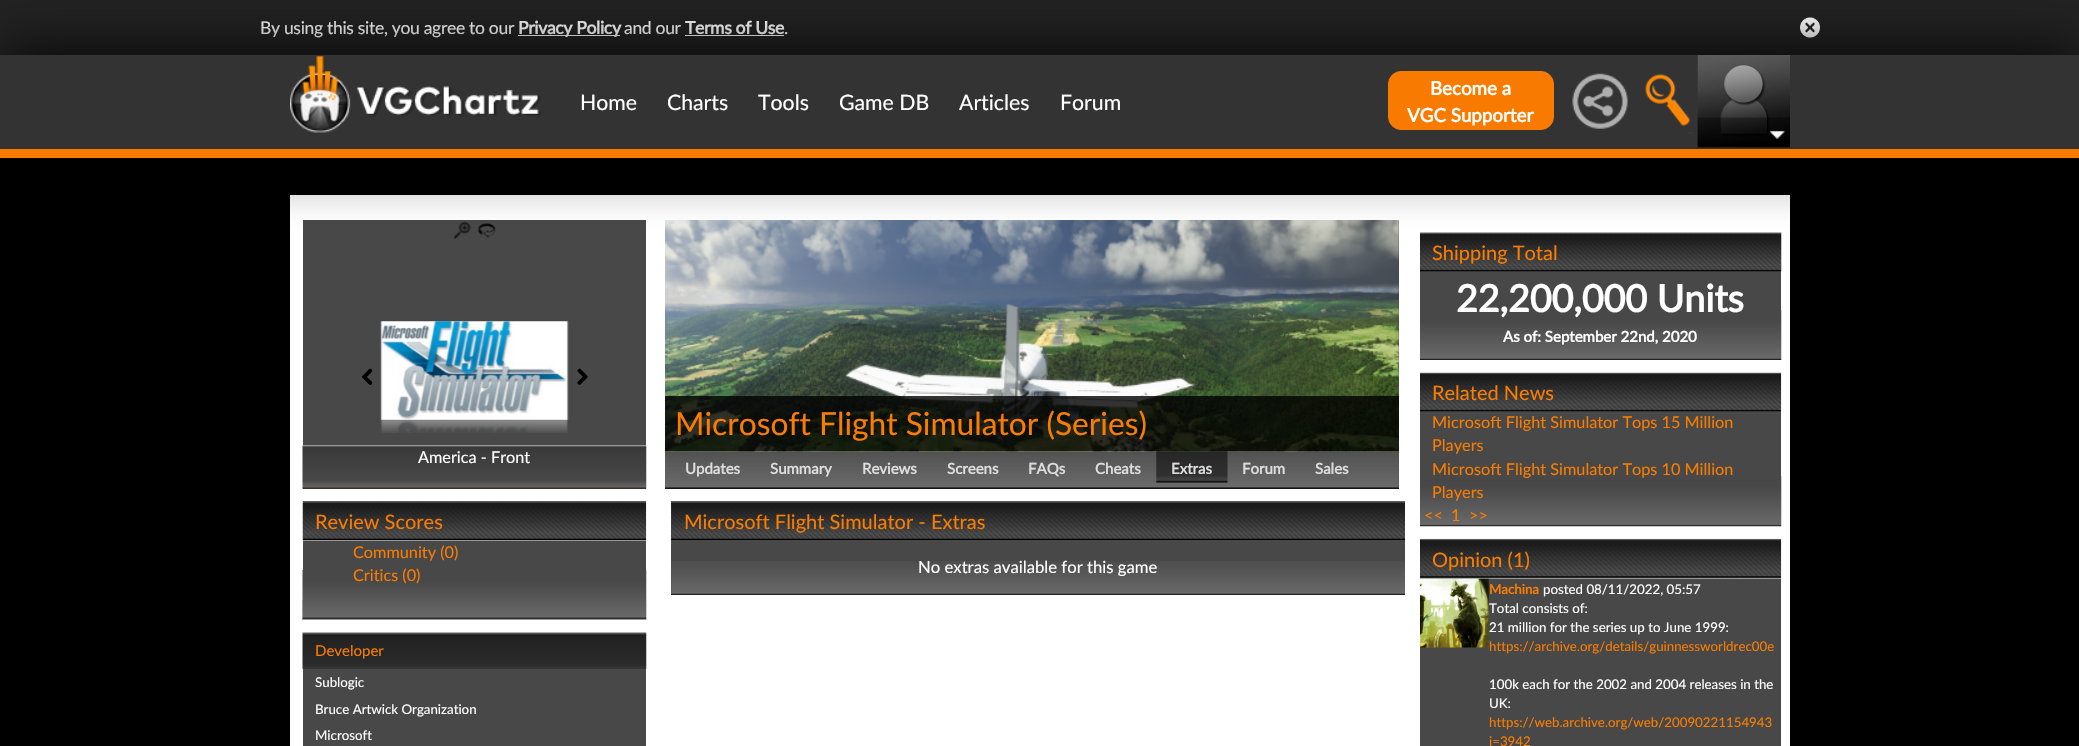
void draw(SkCanvas* canvas) {
    SkPaint paint;
    paint.setAntiAlias(true);
    auto spacedText = [&](const char* s, float x, float y, const SkFont& font, const SkPaint& ink, float letter, float word) {
        std::vector<SkGlyphID> glyphs(font.countText(s, strlen(s), SkTextEncoding::kUTF8));
        std::vector<float> xs(glyphs.size());
        font.textToGlyphs(s, strlen(s), SkTextEncoding::kUTF8, glyphs);
        font.getXPos(glyphs, xs, x);
        float extra = 0;
        for (size_t i = 0; i < glyphs.size(); i++) {
            xs[i] += extra;
            extra += letter + word * (glyphs[i] == font.unicharToGlyph(' '));
        }
        canvas->drawTextBlob(SkTextBlob::MakeFromPosHGlyphs(glyphs, xs, y, font), 0, 0, ink);
    };
    canvas->clear(0xFF000000);
    paint.setColor(0xFF222222);
    canvas->drawRect(SkRect::MakeXYWH(0, 0, 2079, 55), paint);
    SkFont font1(fontMgr->matchFamilyStyle("Lato", SkFontStyle::Normal()), 17.5f);
    font1.setSubpixel(true);
    paint.setColor(0xFFFFFFFF);
    spacedText("By using this site, you agree to our", 260, 34, font1, paint, -0.3f, 0);
    canvas->drawRect(SkRect::MakeXYWH(518, 35, 102, 1), paint);
    SkFont font2(fontMgr->matchFamilyStyle("Lato", SkFontStyle::Bold()), 17.5f);
    font2.setSubpixel(true);
    spacedText("Privacy Policy", 518, 34, font2, paint, -0.3f, 0);
    spacedText("and our", 624, 34, font1, paint, -0.3f, 0);
    spacedText("Terms of Use", 685, 34, font2, paint, -0.3f, 0);
    spacedText(".", 784, 34, font1, paint, -0.3f, 0);
    canvas->drawRect(SkRect::MakeXYWH(685, 35, 99, 1), paint);
    canvas->drawImageRect(SkImages::DeferredFromEncodedData(SkData::MakeFromFileName("img1.png")), SkRect::MakeXYWH(1800, 17, 20, 21), SkSamplingOptions());
    canvas->drawRect(SkRect::MakeXYWH(290, 195, 1500, 551), paint);
    paint.setColor(0xFF484848);
    canvas->drawRect(SkRect::MakeXYWH(303, 220, 343, 269), paint);
    canvas->drawImageRect(SkImages::DeferredFromEncodedData(SkData::MakeFromFileName("img10.png")), SkRect::MakeXYWH(453, 222, 18, 17), SkSamplingOptions());
    canvas->drawImageRect(SkImages::DeferredFromEncodedData(SkData::MakeFromFileName("img11.png")), SkRect::MakeXYWH(478, 223, 18, 15), SkSamplingOptions());
    canvas->drawRect(SkRect::MakeXYWH(665, 220, 734, 269), paint);
    canvas->drawImageRect(SkImages::DeferredFromEncodedData(SkData::MakeFromFileName("img18.png")), SkRect::MakeXYWH(665, 220, 734, 269), SkSamplingOptions());
    canvas->drawImageRect(SkImages::DeferredFromEncodedData(SkData::MakeFromFileName("img19.png")), SkRect::MakeXYWH(665, 220, 734, 232), SkSamplingOptions());
    canvas->drawRect(SkRect::MakeXYWH(1420, 271, 361, 39), paint);
    canvas->drawImageRect(SkImages::DeferredFromEncodedData(SkData::MakeFromFileName("img24.png")), SkRect::MakeXYWH(1420, 232, 362, 40), SkSamplingOptions());
    paint.setColor(0xFF000000);
    paint.setMaskFilter(SkMaskFilter::MakeBlur(kNormal_SkBlurStyle, 31));
    canvas->drawRect(SkRect::MakeXYWH(0, 56, 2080, 103), paint);
    paint.setMaskFilter(nullptr);
    paint.setColor(0xFF333333);
    canvas->drawRect(SkRect::MakeXYWH(0, 55, 2079, 94), paint);
    canvas->drawImageRect(SkImages::DeferredFromEncodedData(SkData::MakeFromFileName("img2.png")), SkRect::MakeXYWH(290, 56, 251, 77), SkSamplingOptions());
    SkFont font3(fontMgr->matchFamilyStyle("Lato", SkFontStyle::Normal()), 21.25f);
    font3.setSubpixel(true);
    paint.setColor(0xFFFFFFFF);
    canvas->drawString("Home", 580, 110, font3, paint);
    canvas->drawString("Charts", 667, 110, font3, paint);
    canvas->drawString("Tools", 758, 110, font3, paint);
    canvas->drawString("Game DB", 839, 110, font3, paint);
    canvas->drawString("Articles", 959, 110, font3, paint);
    canvas->drawString("Forum", 1060, 110, font3, paint);
    paint.setColor(0xFFF87B00);
    canvas->drawRoundRect(SkRect::MakeXYWH(1388.5f, 71.5f, 165, 58), 12.5f, 12.5f, paint);
    paint.setStyle(SkPaint::kStroke_Style);
    paint.setStrokeWidth(1);
    canvas->drawRoundRect(SkRect::MakeXYWH(1388.5f, 71.5f, 165, 58), 12.5f, 12.5f, paint);
    SkFont font4(fontMgr->matchFamilyStyle("Lato", SkFontStyle::Bold()), 18.75f);
    font4.setSubpixel(true);
    paint.setStyle(SkPaint::kFill_Style);
    paint.setColor(0xFFFFFFFF);
    canvas->drawString("Become a", 1430, 95, font4, paint);
    canvas->drawString("VGC Supporter", 1407, 122, font4, paint);
    canvas->drawImageRect(SkImages::DeferredFromEncodedData(SkData::MakeFromFileName("img3.png")), SkRect::MakeXYWH(1572, 73, 56, 56), SkSamplingOptions());
    canvas->drawImageRect(SkImages::DeferredFromEncodedData(SkData::MakeFromFileName("img4.png")), SkRect::MakeXYWH(1645, 74, 48, 60), SkSamplingOptions());
    canvas->drawImageRect(SkImages::DeferredFromEncodedData(SkData::MakeFromFileName("img5.png")), SkRect::MakeXYWH(1697, 55, 93, 93), SkSamplingOptions());
    canvas->drawImageRect(SkImages::DeferredFromEncodedData(SkData::MakeFromFileName("img6.png")), SkRect::MakeXYWH(1697, 117, 93, 31), SkSamplingOptions());
    paint.setColor(0xFFF97B00);
    canvas->drawRect(SkRect::MakeXYWH(0, 149, 2079, 9), paint);
    canvas->drawImageRect(SkImages::DeferredFromEncodedData(SkData::MakeFromFileName("img7.png")), SkRect::MakeXYWH(302, 445, 345, 44), SkSamplingOptions());
    canvas->drawImageRect(SkImages::DeferredFromEncodedData(SkData::MakeFromFileName("img8.png")), SkRect::MakeXYWH(362, 368, 11, 17), SkSamplingOptions());
    canvas->drawImageRect(SkImages::DeferredFromEncodedData(SkData::MakeFromFileName("img9.png")), SkRect::MakeXYWH(577, 368, 11, 17), SkSamplingOptions());
    canvas->drawImageRect(SkImages::DeferredFromEncodedData(SkData::MakeFromFileName("img12.png")), SkRect::MakeXYWH(380, 321, 189, 99), SkSamplingOptions());
    canvas->drawImageRect(SkImages::DeferredFromEncodedData(SkData::MakeFromFileName("img13.png")), SkRect::MakeXYWH(380, 419, 188, 14), SkSamplingOptions());
    SkFont font5(fontMgr->matchFamilyStyle("Lato", SkFontStyle::Normal()), 16.25f);
    font5.setSubpixel(true);
    paint.setColor(0xFFFFFFFF);
    canvas->drawString("America - Front", 418, 463, font5, paint);
    paint.setColor(0xFF484848);
    canvas->drawRect(SkRect::MakeXYWH(303, 501, 343, 69), paint);
    canvas->drawImageRect(SkImages::DeferredFromEncodedData(SkData::MakeFromFileName("img14.png")), SkRect::MakeXYWH(302, 570, 345, 50), SkSamplingOptions());
    canvas->drawImageRect(SkImages::DeferredFromEncodedData(SkData::MakeFromFileName("img15.png")), SkRect::MakeXYWH(302, 501, 345, 39), SkSamplingOptions());
    paint.setColor(0xFF999999);
    canvas->drawRect(SkRect::MakeXYWH(303, 540, 343, 1), paint);
    SkFont font6(fontMgr->matchFamilyStyle("Lato", SkFontStyle::Normal()), 20);
    font6.setSubpixel(true);
    paint.setColor(0xFFFA7D01);
    canvas->drawString("Review Scores", 315, 529, font6, paint);
    canvas->drawString("Community (0)", 353, 558, font5, paint);
    canvas->drawString("Critics (0)", 353, 581, font5, paint);
    canvas->drawImageRect(SkImages::DeferredFromEncodedData(SkData::MakeFromFileName("img16.png")), SkRect::MakeXYWH(302, 600, 345, 19), SkSamplingOptions());
    paint.setColor(0xFF999999);
    canvas->drawRect(SkRect::MakeXYWH(303, 619, 343, 1), paint);
    paint.setColor(0xFF484848);
    canvas->drawRect(SkRect::MakeXYWH(303, 668, 343, 78), paint);
    canvas->drawImageRect(SkImages::DeferredFromEncodedData(SkData::MakeFromFileName("img17.png")), SkRect::MakeXYWH(302, 632, 345, 37), SkSamplingOptions());
    SkFont font7(fontMgr->matchFamilyStyle("Lato", SkFontStyle::Normal()), 15);
    font7.setSubpixel(true);
    paint.setColor(0xFFFA7D01);
    canvas->drawString("Developer", 315, 656, font7, paint);
    SkFont font8(fontMgr->matchFamilyStyle("Lato", SkFontStyle::Normal()), 13.3f);
    font8.setSubpixel(true);
    paint.setColor(0xFFFFFFFF);
    canvas->drawString("Sublogic", 315, 687, font8, paint);
    canvas->drawString("Bruce Artwick Organization", 315, 714, font8, paint);
    canvas->drawString("Microsoft", 315, 740, font8, paint);
    paint.setColor(0xCC000000);
    canvas->drawRect(SkRect::MakeXYWH(665, 396, 734, 55), paint);
    SkFont font9(fontMgr->matchFamilyStyle("Lato", SkFontStyle::Normal()), 31.7f);
    font9.setSubpixel(true);
    paint.setColor(0xFFFA7D01);
    canvas->drawString("Microsoft Flight Simulator (Series)", 675, 435, font9, paint);
    SkFont font10(fontMgr->matchFamilyStyle("Lato", SkFontStyle::Bold()), 15);
    font10.setSubpixel(true);
    paint.setColor(0xFFDDDDDD);
    canvas->drawString("Updates", 685, 474, font10, paint);
    canvas->drawString("Summary", 770, 474, font10, paint);
    canvas->drawString("Reviews", 862, 474, font10, paint);
    canvas->drawString("Screens", 947, 474, font10, paint);
    canvas->drawString("FAQs", 1028, 474, font10, paint);
    canvas->drawString("Cheats", 1095, 474, font10, paint);
    canvas->drawImageRect(SkImages::DeferredFromEncodedData(SkData::MakeFromFileName("img20.png")), SkRect::MakeXYWH(1156, 451, 72, 32), SkSamplingOptions());
    canvas->drawString("Extras", 1171, 474, font10, paint);
    canvas->drawString("Forum", 1242, 474, font10, paint);
    canvas->drawString("Sales", 1315, 474, font10, paint);
    paint.setColor(0xFF484848);
    canvas->drawRect(SkRect::MakeXYWH(671, 501, 734, 94), paint);
    canvas->drawImageRect(SkImages::DeferredFromEncodedData(SkData::MakeFromFileName("img21.png")), SkRect::MakeXYWH(671, 561, 734, 34), SkSamplingOptions());
    canvas->drawImageRect(SkImages::DeferredFromEncodedData(SkData::MakeFromFileName("img22.png")), SkRect::MakeXYWH(671, 501, 734, 39), SkSamplingOptions());
    paint.setColor(0xFFFA7D01);
    canvas->drawString("Microsoft Flight Simulator - Extras", 684, 529, font6, paint);
    SkFont font11(fontMgr->matchFamilyStyle("Lato", SkFontStyle::Normal()), 16.7f);
    font11.setSubpixel(true);
    paint.setColor(0xFFFFFFFF);
    canvas->drawString("No extras available for this game", 918, 573, font11, paint);
    canvas->drawImageRect(SkImages::DeferredFromEncodedData(SkData::MakeFromFileName("img23.png")), SkRect::MakeXYWH(1420, 310, 362, 50), SkSamplingOptions());
    paint.setColor(0xFFFA7D01);
    canvas->drawString("Shipping Total", 1432, 260, font6, paint);
    SkFont font12(fontMgr->matchFamilyStyle("Lato", SkFontStyle::Bold()), 37.5f);
    font12.setSubpixel(true);
    paint.setColor(0xFFFFFFFF);
    canvas->drawString("22,200,000 Units", 1456, 312, font12, paint);
    canvas->drawString("As of: September 22nd, 2020", 1503, 342, font10, paint);
    paint.setColor(0xFF484848);
    canvas->drawRect(SkRect::MakeXYWH(1420, 411, 361, 66), paint);
    canvas->drawImageRect(SkImages::DeferredFromEncodedData(SkData::MakeFromFileName("img25.png")), SkRect::MakeXYWH(1420, 476, 362, 51), SkSamplingOptions());
    canvas->drawImageRect(SkImages::DeferredFromEncodedData(SkData::MakeFromFileName("img26.png")), SkRect::MakeXYWH(1420, 372, 362, 40), SkSamplingOptions());
    paint.setColor(0xFFFA7D01);
    canvas->drawString("Related News", 1432, 400, font6, paint);
    canvas->drawString("Microsoft Flight Simulator Tops 15 Million", 1432, 428, font5, paint);
    canvas->drawString("Players", 1432, 451, font5, paint);
    canvas->drawString("Microsoft Flight Simulator Tops 10 Million", 1432, 475, font5, paint);
    canvas->drawString("Players", 1432, 498, font5, paint);
    canvas->drawString("<<", 1424, 521, font5, paint);
    canvas->drawString("1", 1451, 521, font5, paint);
    canvas->drawString(">>", 1469, 521, font5, paint);
    paint.setColor(0xFF484848);
    canvas->drawRect(SkRect::MakeXYWH(1420, 577, 361, 169), paint);
    canvas->drawImageRect(SkImages::DeferredFromEncodedData(SkData::MakeFromFileName("img27.png")), SkRect::MakeXYWH(1420, 538, 362, 40), SkSamplingOptions());
    paint.setColor(0xFF999999);
    canvas->drawRect(SkRect::MakeXYWH(1420, 578, 361, 1), paint);
    paint.setColor(0xFFFA7D01);
    canvas->drawString("Opinion (1)", 1432, 567, font6, paint);
    canvas->drawImageRect(SkImages::DeferredFromEncodedData(SkData::MakeFromFileName("img28.png")), SkRect::MakeXYWH(1420, 578, 69, 70), SkSamplingOptions());
    SkFont font13(fontMgr->matchFamilyStyle("Lato", SkFontStyle::Bold()), 13.3f);
    font13.setSubpixel(true);
    canvas->drawString("Machina", 1489, 594, font13, paint);
    paint.setColor(0xFFFFFFFF);
    canvas->drawString("posted 08/11/2022, 05:57", 1543, 594, font8, paint);
    canvas->drawString("Total consists of:", 1489, 613, font8, paint);
    canvas->drawString("21 million for the series up to June 1999:", 1489, 632, font8, paint);
    paint.setColor(0xFFFA7D01);
    canvas->drawString("https://archive.org/details/guinnessworldrec00e", 1489, 651, font8, paint);
    paint.setColor(0xFFFFFFFF);
    canvas->drawString("100k each for the 2002 and 2004 releases in the", 1489, 689, font8, paint);
    canvas->drawString("UK:", 1489, 708, font8, paint);
    paint.setColor(0xFFFA7D01);
    canvas->drawString("https://web.archive.org/web/20090221154943", 1489, 727, font8, paint);
    canvas->drawString("i=3942", 1489, 746, font8, paint);
}
